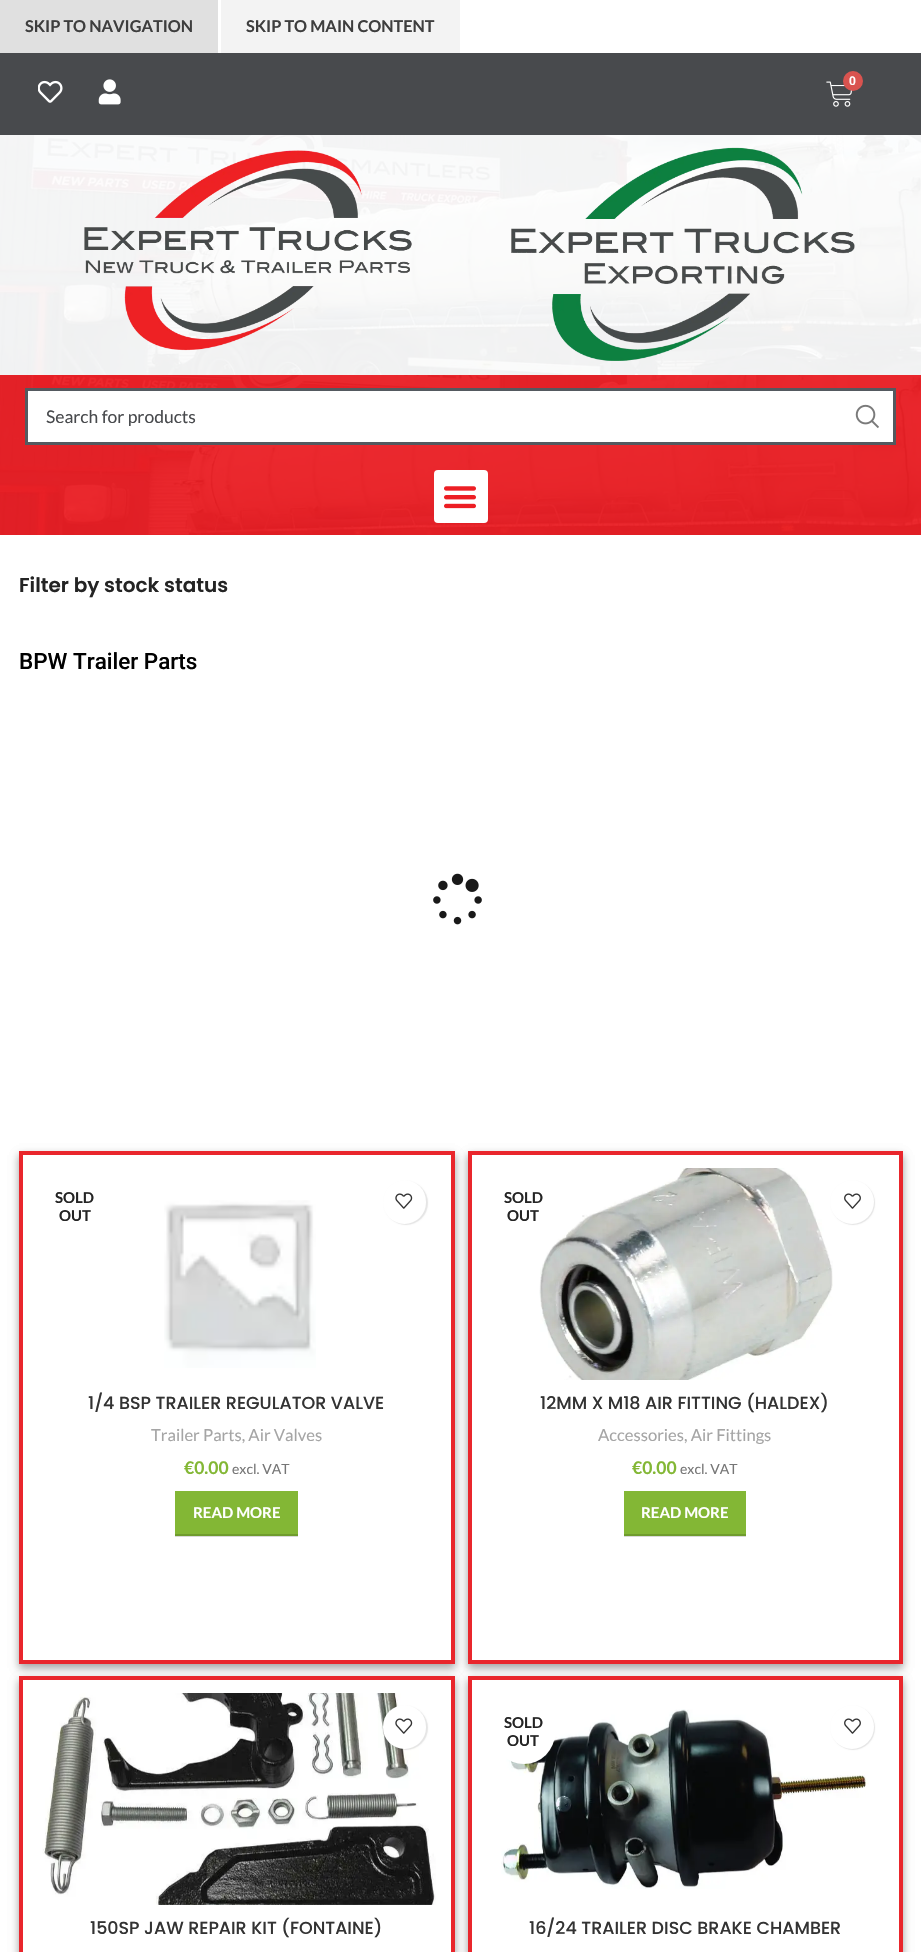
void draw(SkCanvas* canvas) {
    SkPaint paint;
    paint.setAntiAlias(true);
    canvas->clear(0xFFFFFFFF);
    paint.setColor(0xFFD9D9D9);
    canvas->drawRect(SkRect::MakeXYWH(624, 1536, 122, 1), paint);
    canvas->drawRect(SkRect::MakeXYWH(175, 1536, 123, 1), paint);
    paint.setColor(0xFFE0E0E0);
    canvas->drawRect(SkRect::MakeXYWH(0, 0, 218, 53), paint);
    SkFont font1(fontMgr->matchFamilyStyle("Lato", SkFontStyle::Bold()), 16.25f);
    font1.setSubpixel(true);
    paint.setColor(0xFF3E3E3E);
    canvas->drawString("SKIP TO NAVIGATION", 25, 32, font1, paint);
    paint.setColor(0xFFF3F3F3);
    canvas->drawRect(SkRect::MakeXYWH(221, 0, 239, 53), paint);
    paint.setColor(0xFF3E3E3E);
    canvas->drawString("SKIP TO MAIN CONTENT", 246, 32, font1, paint);
    paint.setColor(0xFF484A4D);
    canvas->drawRect(SkRect::MakeXYWH(0, 53, 921, 82), paint);
    canvas->drawImageRect(SkImages::DeferredFromEncodedData(SkData::MakeFromFileName("img1.png")), SkRect::MakeXYWH(38, 80, 25, 23), SkSamplingOptions());
    canvas->drawImageRect(SkImages::DeferredFromEncodedData(SkData::MakeFromFileName("img2.png")), SkRect::MakeXYWH(98, 79, 23, 26), SkSamplingOptions());
    canvas->drawImageRect(SkImages::DeferredFromEncodedData(SkData::MakeFromFileName("img3.png")), SkRect::MakeXYWH(826, 81, 26, 26), SkSamplingOptions());
    paint.setColor(0xFFD9534F);
    canvas->drawCircle(853, 81, 10, paint);
    SkFont font2(fontMgr->matchFamilyStyle("Roboto", SkFontStyle(600, SkFontStyle::kNormal_Width, SkFontStyle::kUpright_Slant)), 12);
    font2.setSubpixel(true);
    paint.setColor(0xFFFFFFFF);
    canvas->drawString("0", 849, 85, font2, paint);
    canvas->drawImageRect(SkImages::DeferredFromEncodedData(SkData::MakeFromFileName("img4.png")), SkRect::MakeXYWH(0, 135, 921, 240), SkSamplingOptions());
    canvas->drawImageRect(SkImages::DeferredFromEncodedData(SkData::MakeFromFileName("img5.png")), SkRect::MakeXYWH(84, 150, 328, 201), SkSamplingOptions());
    canvas->drawImageRect(SkImages::DeferredFromEncodedData(SkData::MakeFromFileName("img6.png")), SkRect::MakeXYWH(511, 147, 344, 214), SkSamplingOptions());
    canvas->drawImageRect(SkImages::DeferredFromEncodedData(SkData::MakeFromFileName("img7.png")), SkRect::MakeXYWH(0, 375, 921, 160), SkSamplingOptions());
    canvas->drawRect(SkRect::MakeXYWH(26.5f, 389.5f, 868, 54), paint);
    paint.setStyle(SkPaint::kStroke_Style);
    paint.setStrokeWidth(3);
    paint.setColor(0xFF54595F);
    canvas->drawRect(SkRect::MakeXYWH(26.5f, 389.5f, 868, 54), paint);
    SkFont font3(fontMgr->matchFamilyStyle("Lato", SkFontStyle::Normal()), 17.5f);
    font3.setSubpixel(true);
    paint.setStyle(SkPaint::kFill_Style);
    paint.setColor(0xFF484A4D);
    canvas->drawString("Search for products", 46, 423, font3, paint);
    canvas->drawImageRect(SkImages::DeferredFromEncodedData(SkData::MakeFromFileName("img8.png")), SkRect::MakeXYWH(855, 404, 24, 25), SkSamplingOptions());
    paint.setColor(0xFFFFFFFF);
    canvas->drawRoundRect(SkRect::MakeXYWH(434, 470, 54, 53), 4, 4, paint);
    canvas->drawImageRect(SkImages::DeferredFromEncodedData(SkData::MakeFromFileName("img9.png")), SkRect::MakeXYWH(444, 486, 32, 23), SkSamplingOptions());
    SkFont font4(fontMgr->matchFamilyStyle("Poppins", SkFontStyle(600, SkFontStyle::kNormal_Width, SkFontStyle::kUpright_Slant)), 20);
    font4.setSubpixel(true);
    paint.setColor(0xFF242424);
    canvas->drawString("Filter by stock status", 19, 592, font4, paint);
    SkFont font5(fontMgr->matchFamilyStyle("Roboto", SkFontStyle(500, SkFontStyle::kNormal_Width, SkFontStyle::kUpright_Slant)), 22.5f);
    font5.setSubpixel(true);
    paint.setColor(0xFF000000);
    canvas->drawString("BPW Trailer Parts", 19, 669, font5, paint);
    canvas->drawImageRect(SkImages::DeferredFromEncodedData(SkData::MakeFromFileName("img10.png")), SkRect::MakeXYWH(433, 873, 49, 52), SkSamplingOptions());
    canvas->save();
    canvas->clipPath(SkPathBuilder(SkPathFillType::kEvenOdd).moveTo(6, 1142).lineTo(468, 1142).lineTo(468, 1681).lineTo(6, 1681).close().moveTo(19, 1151).lineTo(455, 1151).lineTo(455, 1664).lineTo(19, 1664).close().detach(), true);
    paint.setColor(0x3B000000);
    paint.setMaskFilter(SkMaskFilter::MakeBlur(kNormal_SkBlurStyle, 4));
    canvas->drawRect(SkRect::MakeXYWH(19, 1155, 436, 513), paint);
    paint.setMaskFilter(nullptr);
    paint.setColor(0x29000000);
    paint.setMaskFilter(SkMaskFilter::MakeBlur(kNormal_SkBlurStyle, 4));
    canvas->drawRect(SkRect::MakeXYWH(19, 1155, 436, 513), paint);
    paint.setMaskFilter(nullptr);
    canvas->restore();
    paint.setStyle(SkPaint::kStroke_Style);
    paint.setStrokeWidth(4);
    paint.setColor(0xFFE9262C);
    canvas->drawRect(SkRect::MakeXYWH(21, 1153, 432, 509), paint);
    SkFont font6(fontMgr->matchFamilyStyle("Lato", SkFontStyle::Bold()), 15);
    font6.setSubpixel(true);
    paint.setStyle(SkPaint::kFill_Style);
    paint.setColor(0xFF242424);
    canvas->drawString("SOLD", 55, 1203, font6, paint);
    canvas->drawString("OUT", 59, 1221, font6, paint);
    canvas->drawImageRect(SkImages::DeferredFromEncodedData(SkData::MakeFromFileName("img11.png")), SkRect::MakeXYWH(164, 1200, 152, 168), SkSamplingOptions());
    paint.setColor(0x1A000000);
    paint.setMaskFilter(SkMaskFilter::MakeBlur(kNormal_SkBlurStyle, 0.5f));
    canvas->drawRoundRect(SkRect::MakeXYWH(384, 1181, 44, 44), 22, 22, paint);
    paint.setMaskFilter(nullptr);
    paint.setColor(0xFFFFFFFF);
    canvas->drawRoundRect(SkRect::MakeXYWH(383, 1180, 43, 44), 21.5f, 21.5f, paint);
    canvas->drawImageRect(SkImages::DeferredFromEncodedData(SkData::MakeFromFileName("img12.png")), SkRect::MakeXYWH(395, 1193, 18, 16), SkSamplingOptions());
    SkFont font7(fontMgr->matchFamilyStyle("Poppins", SkFontStyle(500, SkFontStyle::kNormal_Width, SkFontStyle::kUpright_Slant)), 17.5f);
    font7.setSubpixel(true);
    paint.setColor(0xFF333333);
    canvas->drawString("1/4 BSP TRAILER REGULATOR VALVE", 88, 1409, font7, paint);
    SkFont font8(fontMgr->matchFamilyStyle("Lato", SkFontStyle::Normal()), 16.6f);
    font8.setSubpixel(true);
    paint.setColor(0xFFA5A5A5);
    canvas->drawString("Trailer Parts, Air Valves", 151, 1441, font8, paint);
    SkFont font9(fontMgr->matchFamilyStyle("Lato", SkFontStyle::Bold()), 17.5f);
    font9.setSubpixel(true);
    paint.setColor(0xFF83B735);
    canvas->drawString("€0.00", 184, 1474, font9, paint);
    SkFont font10(fontMgr->matchFamilyStyle("Lato", SkFontStyle::Normal()), 14);
    font10.setSubpixel(true);
    paint.setColor(0xFF767676);
    canvas->drawString("excl. VAT", 232, 1474, font10, paint);
    paint.setColor(0xFF83B735);
    canvas->drawRect(SkRect::MakeXYWH(175, 1491, 123, 43), paint);
    paint.setColor(0xFF6F9C2D);
    canvas->drawRect(SkRect::MakeXYWH(175, 1534, 123, 2), paint);
    paint.setColor(0xFFFFFFFF);
    canvas->drawString("READ MORE", 193, 1518, font6, paint);
    canvas->save();
    canvas->clipPath(SkPathBuilder(SkPathFillType::kEvenOdd).moveTo(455, 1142).lineTo(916, 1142).lineTo(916, 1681).lineTo(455, 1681).close().moveTo(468, 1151).lineTo(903, 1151).lineTo(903, 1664).lineTo(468, 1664).close().detach(), true);
    paint.setColor(0x3B000000);
    paint.setMaskFilter(SkMaskFilter::MakeBlur(kNormal_SkBlurStyle, 4));
    canvas->drawRect(SkRect::MakeXYWH(468, 1155, 435, 513), paint);
    paint.setMaskFilter(nullptr);
    paint.setColor(0x29000000);
    paint.setMaskFilter(SkMaskFilter::MakeBlur(kNormal_SkBlurStyle, 4));
    canvas->drawRect(SkRect::MakeXYWH(468, 1155, 435, 513), paint);
    paint.setMaskFilter(nullptr);
    canvas->restore();
    paint.setStyle(SkPaint::kStroke_Style);
    paint.setColor(0xFFE9262C);
    canvas->drawRect(SkRect::MakeXYWH(470, 1153, 431, 509), paint);
    canvas->drawImageRect(SkImages::DeferredFromEncodedData(SkData::MakeFromFileName("img13.png")), SkRect::MakeXYWH(539, 1168, 294, 212), SkSamplingOptions());
    paint.setStyle(SkPaint::kFill_Style);
    paint.setColor(0xFF242424);
    canvas->drawString("SOLD", 504, 1203, font6, paint);
    canvas->drawString("OUT", 507, 1221, font6, paint);
    paint.setColor(0x1A000000);
    paint.setMaskFilter(SkMaskFilter::MakeBlur(kNormal_SkBlurStyle, 0.5f));
    canvas->drawRoundRect(SkRect::MakeXYWH(831, 1181, 44, 44), 22, 22, paint);
    paint.setMaskFilter(nullptr);
    paint.setColor(0xFFFFFFFF);
    canvas->drawCircle(852, 1202, 22, paint);
    canvas->drawImageRect(SkImages::DeferredFromEncodedData(SkData::MakeFromFileName("img14.png")), SkRect::MakeXYWH(844, 1193, 17, 16), SkSamplingOptions());
    paint.setColor(0xFF333333);
    canvas->drawString("12MM X M18 AIR FITTING (HALDEX)", 540, 1409, font7, paint);
    paint.setColor(0xFFA5A5A5);
    canvas->drawString("Accessories, Air Fittings", 598, 1441, font8, paint);
    paint.setColor(0xFF83B735);
    canvas->drawString("€0.00", 632, 1474, font9, paint);
    paint.setColor(0xFF767676);
    canvas->drawString("excl. VAT", 680, 1474, font10, paint);
    paint.setColor(0xFF83B735);
    canvas->drawRect(SkRect::MakeXYWH(624, 1491, 122, 43), paint);
    paint.setColor(0xFF6F9C2D);
    canvas->drawRect(SkRect::MakeXYWH(624, 1534, 122, 2), paint);
    paint.setColor(0xFFFFFFFF);
    canvas->drawString("READ MORE", 641, 1518, font6, paint);
    canvas->save();
    canvas->clipPath(SkPathBuilder(SkPathFillType::kEvenOdd).moveTo(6, 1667).lineTo(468, 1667).lineTo(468, 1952).lineTo(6, 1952).close().moveTo(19, 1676).lineTo(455, 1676).lineTo(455, 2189).lineTo(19, 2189).close().detach(), true);
    paint.setColor(0x3B000000);
    paint.setMaskFilter(SkMaskFilter::MakeBlur(kNormal_SkBlurStyle, 4));
    canvas->drawRect(SkRect::MakeXYWH(19, 1680, 436, 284), paint);
    paint.setMaskFilter(nullptr);
    paint.setColor(0x29000000);
    paint.setMaskFilter(SkMaskFilter::MakeBlur(kNormal_SkBlurStyle, 4));
    canvas->drawRect(SkRect::MakeXYWH(19, 1680, 436, 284), paint);
    paint.setMaskFilter(nullptr);
    canvas->restore();
    paint.setStyle(SkPaint::kStroke_Style);
    paint.setColor(0xFFE9262C);
    canvas->drawRect(SkRect::MakeXYWH(21, 1678, 432, 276), paint);
    canvas->drawImageRect(SkImages::DeferredFromEncodedData(SkData::MakeFromFileName("img15.png")), SkRect::MakeXYWH(42, 1693, 394, 212), SkSamplingOptions());
    paint.setStyle(SkPaint::kFill_Style);
    paint.setColor(0x1A000000);
    paint.setMaskFilter(SkMaskFilter::MakeBlur(kNormal_SkBlurStyle, 0.5f));
    canvas->drawRoundRect(SkRect::MakeXYWH(384, 1706, 44, 44), 22, 22, paint);
    paint.setMaskFilter(nullptr);
    paint.setColor(0xFFFFFFFF);
    canvas->drawRoundRect(SkRect::MakeXYWH(383, 1705, 43, 44), 21.5f, 21.5f, paint);
    canvas->drawImageRect(SkImages::DeferredFromEncodedData(SkData::MakeFromFileName("img12.png")), SkRect::MakeXYWH(395, 1718, 18, 16), SkSamplingOptions());
    paint.setColor(0xFF333333);
    canvas->drawString("150SP JAW REPAIR KIT (FONTAINE)", 90, 1934, font7, paint);
    canvas->save();
    canvas->clipPath(SkPathBuilder(SkPathFillType::kEvenOdd).moveTo(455, 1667).lineTo(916, 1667).lineTo(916, 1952).lineTo(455, 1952).close().moveTo(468, 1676).lineTo(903, 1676).lineTo(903, 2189).lineTo(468, 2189).close().detach(), true);
    paint.setColor(0x3B000000);
    paint.setMaskFilter(SkMaskFilter::MakeBlur(kNormal_SkBlurStyle, 4));
    canvas->drawRect(SkRect::MakeXYWH(468, 1680, 435, 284), paint);
    paint.setMaskFilter(nullptr);
    paint.setColor(0x29000000);
    paint.setMaskFilter(SkMaskFilter::MakeBlur(kNormal_SkBlurStyle, 4));
    canvas->drawRect(SkRect::MakeXYWH(468, 1680, 435, 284), paint);
    paint.setMaskFilter(nullptr);
    canvas->restore();
    paint.setStyle(SkPaint::kStroke_Style);
    paint.setColor(0xFFE9262C);
    canvas->drawRect(SkRect::MakeXYWH(470, 1678, 431, 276), paint);
    canvas->drawImageRect(SkImages::DeferredFromEncodedData(SkData::MakeFromFileName("img16.png")), SkRect::MakeXYWH(501, 1709, 368, 180), SkSamplingOptions());
    paint.setStyle(SkPaint::kFill_Style);
    paint.setColor(0xFFFFFFFF);
    canvas->drawRoundRect(SkRect::MakeXYWH(493, 1701, 62, 63), 31, 31, paint);
    paint.setColor(0xFF242424);
    canvas->drawString("SOLD", 504, 1728, font6, paint);
    canvas->drawString("OUT", 507, 1746, font6, paint);
    paint.setColor(0x1A000000);
    paint.setMaskFilter(SkMaskFilter::MakeBlur(kNormal_SkBlurStyle, 0.5f));
    canvas->drawRoundRect(SkRect::MakeXYWH(831, 1706, 44, 44), 22, 22, paint);
    paint.setMaskFilter(nullptr);
    paint.setColor(0xFFFFFFFF);
    canvas->drawCircle(852, 1727, 22, paint);
    canvas->drawImageRect(SkImages::DeferredFromEncodedData(SkData::MakeFromFileName("img14.png")), SkRect::MakeXYWH(844, 1718, 17, 16), SkSamplingOptions());
    paint.setColor(0xFF333333);
    canvas->drawString("16/24 TRAILER DISC BRAKE CHAMBER", 529, 1934, font7, paint);
}
